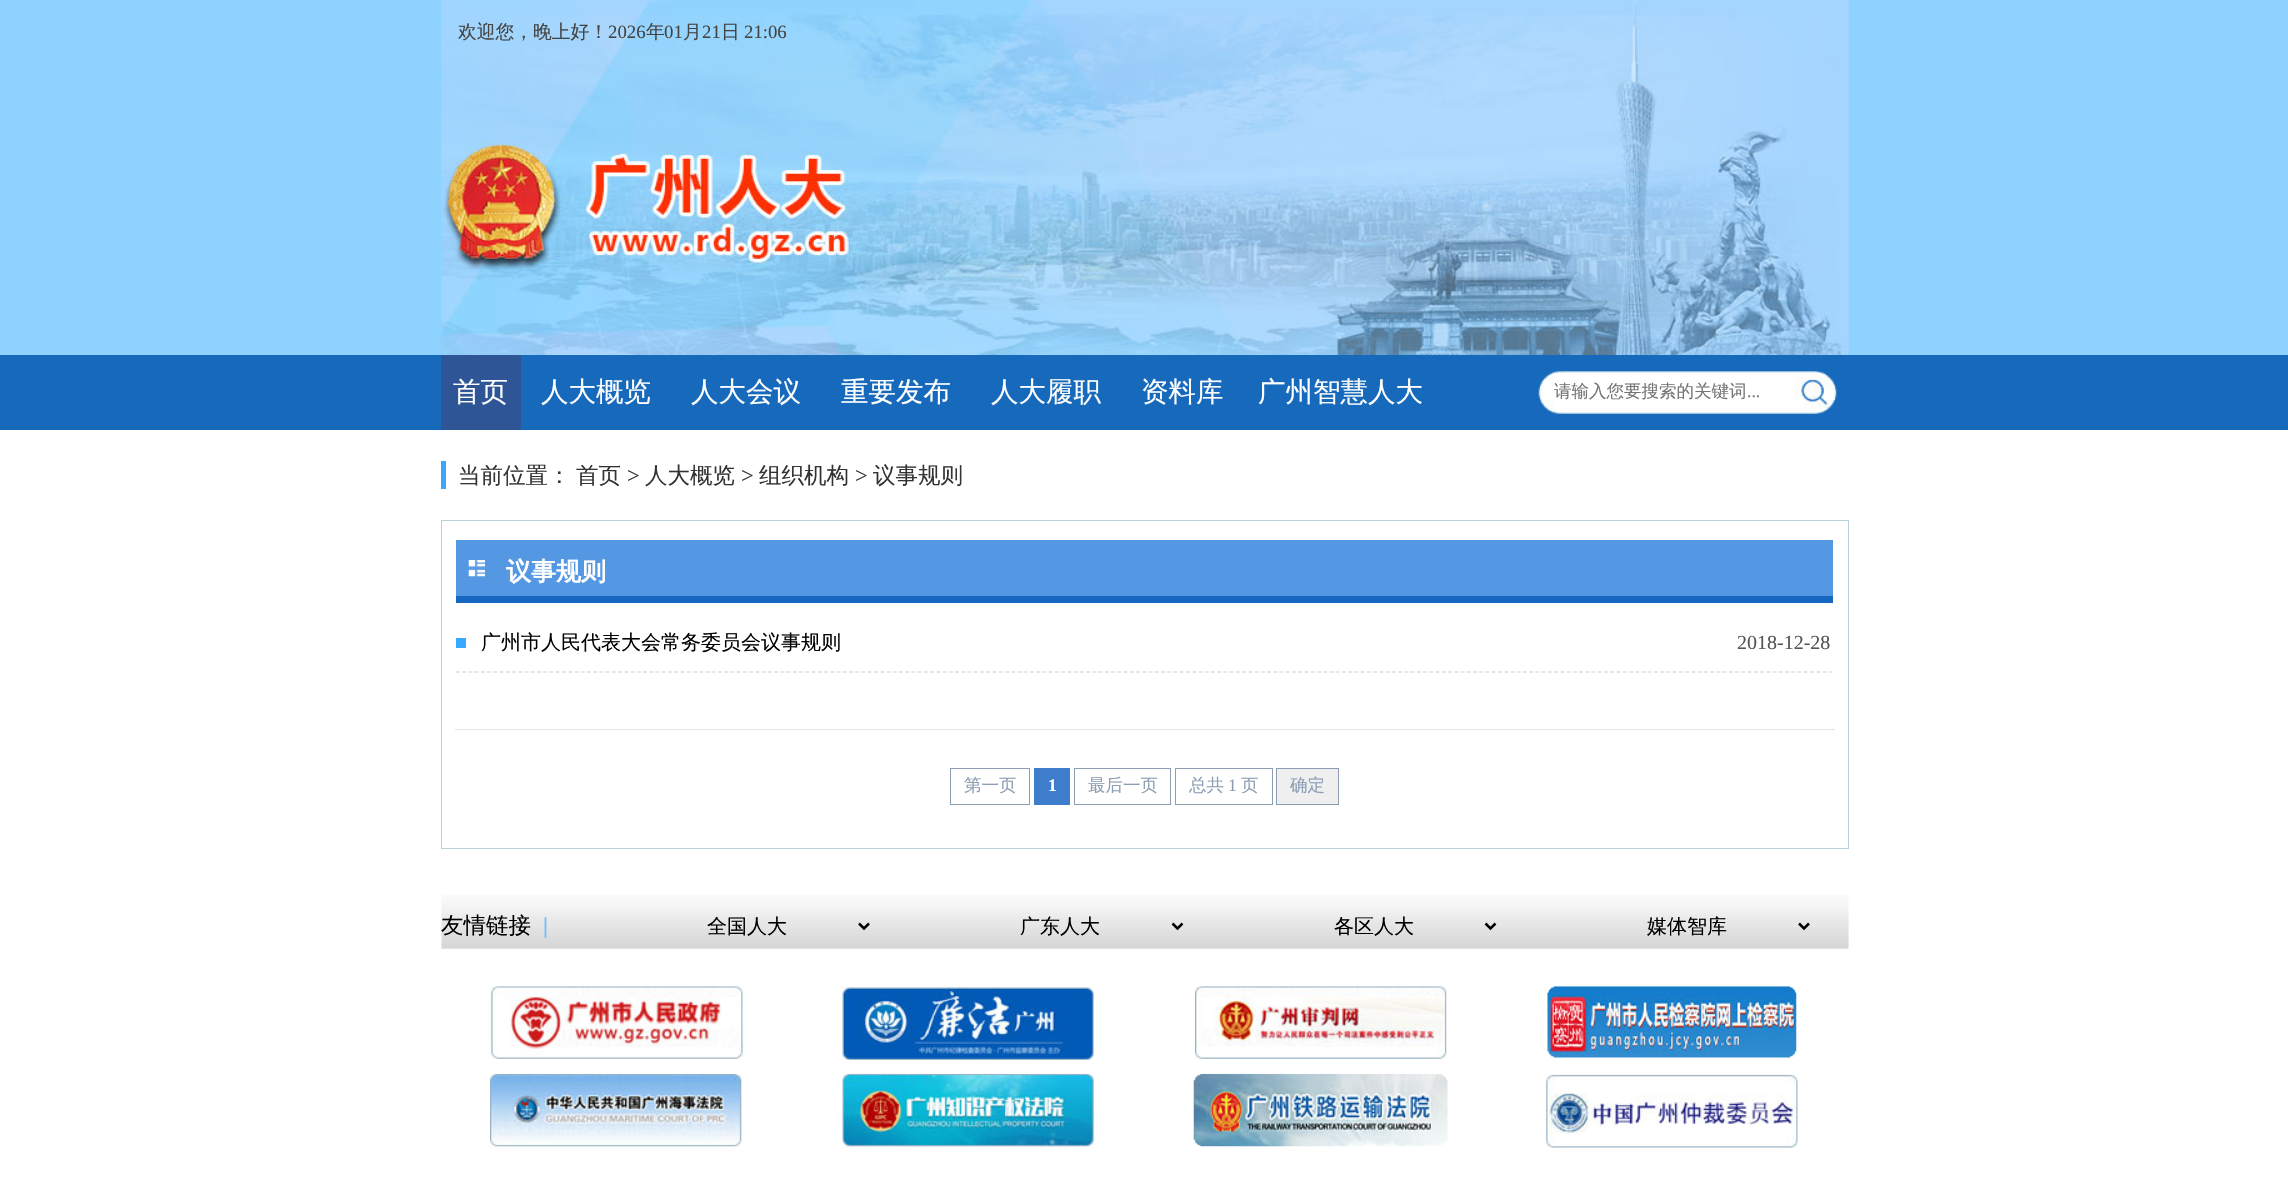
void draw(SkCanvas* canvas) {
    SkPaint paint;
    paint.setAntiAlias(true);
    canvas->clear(0xFFFFFFFF);
    paint.setColor(0xFF8ED2FF);
    canvas->drawRect(SkRect::MakeXYWH(0, 0, 2288, 355), paint);
    canvas->drawImageRect(SkImages::DeferredFromEncodedData(SkData::MakeFromFileName("img1.png")), SkRect::MakeXYWH(441, 0, 1408, 355), SkSamplingOptions());
    SkFont font1(fontMgr->matchFamilyStyle("WenQuanYi Zen Hei", SkFontStyle(500, SkFontStyle::kNormal_Width, SkFontStyle::kUpright_Slant)), 18.75f);
    font1.setSubpixel(true);
    paint.setColor(0xFF444444);
    canvas->drawString("欢迎您，晚上好！", 458, 38, font1, paint);
    SkFont font2(fontMgr->matchFamilyStyle("Liberation Serif", SkFontStyle::Normal()), 18.75f);
    font2.setSubpixel(true);
    canvas->drawString("2026", 608, 38, font2, paint);
    canvas->drawString("年", 646, 38, font1, paint);
    canvas->drawString("01", 664, 38, font2, paint);
    canvas->drawString("月", 683, 38, font1, paint);
    canvas->drawString("21", 702, 38, font2, paint);
    canvas->drawString("日", 721, 38, font1, paint);
    canvas->drawString("21:06", 744, 38, font2, paint);
    paint.setColor(0xFF1669BB);
    canvas->drawRect(SkRect::MakeXYWH(0, 355, 2288, 75), paint);
    paint.setColor(0xFF2E5595);
    canvas->drawRect(SkRect::MakeXYWH(441, 355, 80, 75), paint);
    SkFont font3(fontMgr->matchFamilyStyle("WenQuanYi Zen Hei", SkFontStyle(500, SkFontStyle::kNormal_Width, SkFontStyle::kUpright_Slant)), 27.5f);
    font3.setSubpixel(true);
    paint.setColor(0xFFFFFFFF);
    canvas->drawString("首页", 453, 401, font3, paint);
    canvas->drawString("人大概览", 541, 401, font3, paint);
    canvas->drawString("人大会议", 691, 401, font3, paint);
    canvas->drawString("重要发布", 841, 401, font3, paint);
    canvas->drawString("人大履职", 991, 401, font3, paint);
    canvas->drawString("资料库", 1141, 401, font3, paint);
    canvas->drawString("广州智慧人大", 1258, 401, font3, paint);
    canvas->drawImageRect(SkImages::DeferredFromEncodedData(SkData::MakeFromFileName("img2.png")), SkRect::MakeXYWH(1538, 371, 299, 43), SkSamplingOptions());
    canvas->drawRect(SkRect::MakeXYWH(1555, 374, 238, 37), paint);
    SkFont font4(fontMgr->matchFamilyStyle("WenQuanYi Zen Hei", SkFontStyle(500, SkFontStyle::kNormal_Width, SkFontStyle::kUpright_Slant)), 17.5f);
    font4.setSubpixel(true);
    paint.setColor(0xFF757575);
    canvas->drawString("请输入您要搜索的关键词", 1554, 397, font4, paint);
    SkFont font5(fontMgr->matchFamilyStyle("Liberation Serif", SkFontStyle::Normal()), 17.5f);
    font5.setSubpixel(true);
    canvas->drawString("...", 1747, 397, font5, paint);
    paint.setColor(0xFF38A8FE);
    canvas->drawRect(SkRect::MakeXYWH(441, 461, 5, 28), paint);
    SkFont font6(fontMgr->matchFamilyStyle("WenQuanYi Zen Hei", SkFontStyle(500, SkFontStyle::kNormal_Width, SkFontStyle::kUpright_Slant)), 22.5f);
    font6.setSubpixel(true);
    paint.setColor(0xFF333333);
    canvas->drawString("当前位置：", 458, 483, font6, paint);
    canvas->drawString("首页", 576, 483, font6, paint);
    SkFont font7(fontMgr->matchFamilyStyle("Liberation Serif", SkFontStyle::Normal()), 22.5f);
    font7.setSubpixel(true);
    canvas->drawString(">", 627, 483, font7, paint);
    canvas->drawString("人大概览", 645, 483, font6, paint);
    canvas->drawString(">", 741, 483, font7, paint);
    canvas->drawString("组织机构", 759, 483, font6, paint);
    canvas->drawString(">", 855, 483, font7, paint);
    canvas->drawString("议事规则", 873, 483, font6, paint);
    paint.setStyle(SkPaint::kStroke_Style);
    paint.setStrokeWidth(1);
    paint.setColor(0xFFB9D1DE);
    canvas->drawRect(SkRect::MakeXYWH(441.5f, 520.5f, 1407, 328), paint);
    paint.setStyle(SkPaint::kFill_Style);
    paint.setColor(0xFF5497E2);
    canvas->drawRect(SkRect::MakeXYWH(456, 540, 1377, 56), paint);
    canvas->drawImageRect(SkImages::DeferredFromEncodedData(SkData::MakeFromFileName("img3.png")), SkRect::MakeXYWH(468, 560, 17, 17), SkSamplingOptions());
    paint.setColor(0xFF1667C2);
    canvas->drawRect(SkRect::MakeXYWH(456, 596, 1377, 7), paint);
    SkFont font8(fontMgr->matchFamilyStyle("WenQuanYi Zen Hei", SkFontStyle::Bold()), 25);
    font8.setSubpixel(true);
    paint.setColor(0xFFFFFFFF);
    canvas->drawString("议事规则", 506, 580, font8, paint);
    paint.setStyle(SkPaint::kStroke_Style);
    paint.setStrokeWidth(1.2f);
    paint.setColor(0xFFCCCCCC);
    paint.setPathEffect(SkDashPathEffect::Make({{3.75f, 2.49f}}, 0));
    canvas->drawPath(SkPathBuilder().moveTo(456, 672).lineTo(1832.5f, 672).detach(), paint);
    paint.setPathEffect(nullptr);
    paint.setStyle(SkPaint::kFill_Style);
    paint.setColor(0xFF39A9FF);
    canvas->drawRect(SkRect::MakeXYWH(456, 638, 10, 10), paint);
    SkFont font9(fontMgr->matchFamilyStyle("WenQuanYi Zen Hei", SkFontStyle(500, SkFontStyle::kNormal_Width, SkFontStyle::kUpright_Slant)), 20);
    font9.setSubpixel(true);
    paint.setColor(0xFF000000);
    canvas->drawString("广州市人民代表大会常务委员会议事规则", 481, 649, font9, paint);
    SkFont font10(fontMgr->matchFamilyStyle("Liberation Serif", SkFontStyle::Normal()), 20);
    font10.setSubpixel(true);
    paint.setColor(0xFF555555);
    canvas->drawString("2018-12-28", 1737, 649, font10, paint);
    paint.setColor(0xFFE5E5E5);
    canvas->drawRect(SkRect::MakeXYWH(455, 729, 1380, 1), paint);
    paint.setStyle(SkPaint::kStroke_Style);
    paint.setStrokeWidth(1);
    paint.setColor(0xFF8C9EB3);
    canvas->drawRect(SkRect::MakeXYWH(950.5f, 768.5f, 79, 36), paint);
    paint.setStyle(SkPaint::kFill_Style);
    canvas->drawString("第一页", 964, 791, font4, paint);
    paint.setColor(0xFF3D7DCB);
    canvas->drawRect(SkRect::MakeXYWH(1034, 768, 36, 37), paint);
    SkFont font11(fontMgr->matchFamilyStyle("Liberation Serif", SkFontStyle::Bold()), 17.5f);
    font11.setSubpixel(true);
    paint.setColor(0xFFFFFFFF);
    canvas->drawString("1", 1048, 791, font11, paint);
    paint.setStyle(SkPaint::kStroke_Style);
    paint.setColor(0xFF8C9EB3);
    canvas->drawRect(SkRect::MakeXYWH(1074.5f, 768.5f, 96, 36), paint);
    paint.setStyle(SkPaint::kFill_Style);
    canvas->drawString("最后一页", 1088, 791, font4, paint);
    paint.setStyle(SkPaint::kStroke_Style);
    canvas->drawRect(SkRect::MakeXYWH(1175.5f, 768.5f, 97, 36), paint);
    paint.setStyle(SkPaint::kFill_Style);
    canvas->drawString("总共", 1189, 791, font4, paint);
    canvas->drawString("1", 1228, 791, font5, paint);
    canvas->drawString("页", 1241, 791, font4, paint);
    paint.setColor(0xFFEFEFEF);
    canvas->drawRect(SkRect::MakeXYWH(1276.5f, 768.5f, 62, 36), paint);
    paint.setStyle(SkPaint::kStroke_Style);
    paint.setColor(0xFF8C9EB3);
    canvas->drawRect(SkRect::MakeXYWH(1276.5f, 768.5f, 62, 36), paint);
    paint.setStyle(SkPaint::kFill_Style);
    canvas->drawString("确定", 1290, 791, font4, paint);
    canvas->drawImageRect(SkImages::DeferredFromEncodedData(SkData::MakeFromFileName("img4.png")), SkRect::MakeXYWH(441, 895, 1408, 54), SkSamplingOptions());
    paint.setColor(0xFF000000);
    canvas->drawString("友情链接", 441, 933, font6, paint);
    SkFont font12(fontMgr->matchFamilyStyle("Liberation Serif", SkFontStyle::Bold()), 22.5f);
    font12.setSubpixel(true);
    paint.setColor(0xFF6DBEFF);
    canvas->drawString("|", 543, 933, font12, paint);
    paint.setStyle(SkPaint::kStroke_Style);
    paint.setStrokeWidth(2.5f);
    paint.setColor(0xFF000000);
    canvas->drawPath(SkPathBuilder().moveTo(859, 923.5f).lineTo(864, 928.5f).lineTo(869, 923.5f).detach(), paint);
    paint.setStyle(SkPaint::kFill_Style);
    canvas->drawString("全国人大", 707, 933, font9, paint);
    paint.setStyle(SkPaint::kStroke_Style);
    canvas->drawPath(SkPathBuilder().moveTo(1172.5f, 923.5f).lineTo(1177.5f, 928.5f).lineTo(1182.5f, 923.5f).detach(), paint);
    paint.setStyle(SkPaint::kFill_Style);
    canvas->drawString("广东人大", 1020, 933, font9, paint);
    paint.setStyle(SkPaint::kStroke_Style);
    canvas->drawPath(SkPathBuilder().moveTo(1485.5f, 923.5f).lineTo(1490.5f, 928.5f).lineTo(1495.5f, 923.5f).detach(), paint);
    paint.setStyle(SkPaint::kFill_Style);
    canvas->drawString("各区人大", 1334, 933, font9, paint);
    paint.setStyle(SkPaint::kStroke_Style);
    canvas->drawPath(SkPathBuilder().moveTo(1799, 923.5f).lineTo(1804, 928.5f).lineTo(1809, 923.5f).detach(), paint);
    paint.setStyle(SkPaint::kFill_Style);
    canvas->drawString("媒体智库", 1647, 933, font9, paint);
    canvas->drawImageRect(SkImages::DeferredFromEncodedData(SkData::MakeFromFileName("img5.png")), SkRect::MakeXYWH(490, 986, 254, 73), SkSamplingOptions());
    canvas->drawImageRect(SkImages::DeferredFromEncodedData(SkData::MakeFromFileName("img6.png")), SkRect::MakeXYWH(842, 986, 252, 74), SkSamplingOptions());
    canvas->drawImageRect(SkImages::DeferredFromEncodedData(SkData::MakeFromFileName("img7.png")), SkRect::MakeXYWH(1195, 986, 252, 74), SkSamplingOptions());
    canvas->drawImageRect(SkImages::DeferredFromEncodedData(SkData::MakeFromFileName("img8.png")), SkRect::MakeXYWH(1547, 986, 250, 72), SkSamplingOptions());
    canvas->drawImageRect(SkImages::DeferredFromEncodedData(SkData::MakeFromFileName("img9.png")), SkRect::MakeXYWH(490, 1073, 253, 75), SkSamplingOptions());
    canvas->drawImageRect(SkImages::DeferredFromEncodedData(SkData::MakeFromFileName("img10.png")), SkRect::MakeXYWH(842, 1073, 252, 75), SkSamplingOptions());
    canvas->drawImageRect(SkImages::DeferredFromEncodedData(SkData::MakeFromFileName("img11.png")), SkRect::MakeXYWH(1193, 1073, 255, 74), SkSamplingOptions());
    canvas->drawImageRect(SkImages::DeferredFromEncodedData(SkData::MakeFromFileName("img12.png")), SkRect::MakeXYWH(1546, 1074, 252, 74), SkSamplingOptions());
}
